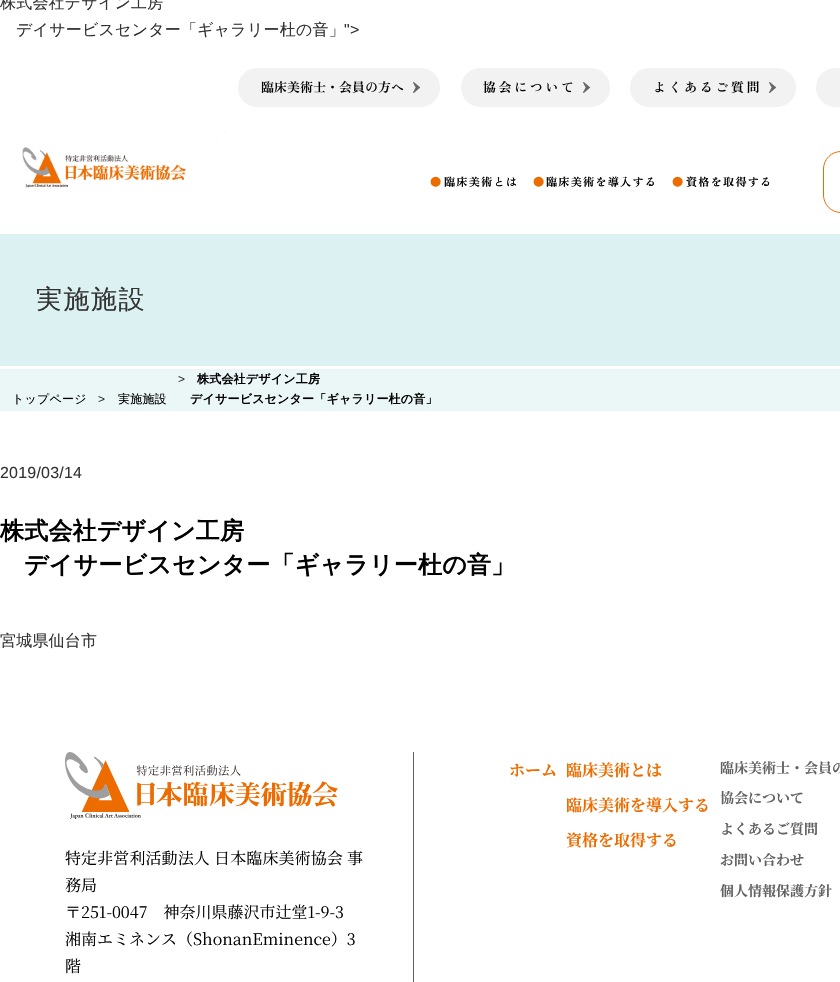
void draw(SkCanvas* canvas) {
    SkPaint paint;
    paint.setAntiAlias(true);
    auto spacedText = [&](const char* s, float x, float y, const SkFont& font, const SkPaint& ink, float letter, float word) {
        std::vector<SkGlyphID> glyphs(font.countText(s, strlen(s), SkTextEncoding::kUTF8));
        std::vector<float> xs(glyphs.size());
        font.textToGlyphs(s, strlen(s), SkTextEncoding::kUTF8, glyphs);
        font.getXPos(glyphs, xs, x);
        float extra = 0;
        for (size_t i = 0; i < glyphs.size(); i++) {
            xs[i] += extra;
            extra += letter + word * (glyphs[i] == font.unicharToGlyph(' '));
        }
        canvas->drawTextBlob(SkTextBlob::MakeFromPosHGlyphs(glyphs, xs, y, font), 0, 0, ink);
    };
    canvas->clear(0xFFFFFFFF);
    SkFont font1(fontMgr->matchFamilyStyle("WenQuanYi Zen Hei", SkFontStyle(500, SkFontStyle::kNormal_Width, SkFontStyle::kUpright_Slant)), 16);
    font1.setSubpixel(true);
    paint.setColor(0xFF333333);
    spacedText("株式会社デザイン工房", 0, 8, font1, paint, 0.2f, 0);
    spacedText("デイサービスセンター「ギャラリー杜の音」", 16, 35, font1, paint, 0.2f, 0);
    SkFont font2(fontMgr->matchFamilyStyle("Liberation Sans", SkFontStyle::Normal()), 16);
    font2.setSubpixel(true);
    spacedText("\">", 344, 35, font2, paint, 0.2f, 0);
    canvas->drawImageRect(SkImages::DeferredFromEncodedData(SkData::MakeFromFileName("img1.png")), SkRect::MakeXYWH(238, 68, 202, 39), SkSamplingOptions());
    canvas->drawImageRect(SkImages::DeferredFromEncodedData(SkData::MakeFromFileName("img2.png")), SkRect::MakeXYWH(461, 68, 149, 39), SkSamplingOptions());
    canvas->drawImageRect(SkImages::DeferredFromEncodedData(SkData::MakeFromFileName("img3.png")), SkRect::MakeXYWH(630, 68, 166, 39), SkSamplingOptions());
    canvas->drawImageRect(SkImages::DeferredFromEncodedData(SkData::MakeFromFileName("img4.png")), SkRect::MakeXYWH(816, 68, 24, 39), SkSamplingOptions());
    canvas->drawImageRect(SkImages::DeferredFromEncodedData(SkData::MakeFromFileName("img5.png")), SkRect::MakeXYWH(0, 131, 226, 81), SkSamplingOptions());
    SkFont font3(fontMgr->matchFamilyStyle("Noto Serif JP", SkFontStyle::Normal()), 11.25f);
    font3.setSubpixel(true);
    paint.setColor(0xFFEC6C00);
    canvas->drawString("●", 430, 186, font3, paint);
    SkFont font4(fontMgr->matchFamilyStyle("Zen Old Mincho", SkFontStyle::Bold()), 11.25f);
    font4.setSubpixel(true);
    paint.setColor(0xFF000000);
    spacedText("臨床美術とは", 444, 186, font4, paint, 1.1f, 0);
    paint.setColor(0xFFEC6C00);
    canvas->drawString("●", 533, 186, font3, paint);
    paint.setColor(0xFF000000);
    spacedText("臨床美術を導入する", 546, 186, font4, paint, 1.1f, 0);
    paint.setColor(0xFFEC6C00);
    canvas->drawString("●", 672, 186, font3, paint);
    paint.setColor(0xFF000000);
    spacedText("資格を取得する", 686, 186, font4, paint, 1.1f, 0);
    paint.setStyle(SkPaint::kStroke_Style);
    paint.setStrokeWidth(1);
    paint.setColor(0xFFEC6C00);
    canvas->drawRoundRect(SkRect::MakeXYWH(823.5f, 151.5f, 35, 61), 17.5f, 17.5f, paint);
    paint.setStyle(SkPaint::kFill_Style);
    paint.setColor(0xFFDCF1F1);
    canvas->drawRect(SkRect::MakeXYWH(0, 234, 840, 132), paint);
    SkFont font5(fontMgr->matchFamilyStyle("WenQuanYi Zen Hei", SkFontStyle(500, SkFontStyle::kNormal_Width, SkFontStyle::kUpright_Slant)), 26);
    font5.setSubpixel(true);
    paint.setColor(0xFF333333);
    spacedText("実施施設", 36, 308, font5, paint, 1.5f, 0);
    paint.setColor(0xFFEBF7F7);
    canvas->drawRect(SkRect::MakeXYWH(0, 369, 840, 42), paint);
    SkFont font6(fontMgr->matchFamilyStyle("WenQuanYi Zen Hei", SkFontStyle(500, SkFontStyle::kNormal_Width, SkFontStyle::kUpright_Slant)), 12);
    font6.setSubpixel(true);
    paint.setColor(0xFF000000);
    spacedText("トップページ", 12, 403, font6, paint, 0.2f, 0);
    SkFont font7(fontMgr->matchFamilyStyle("Liberation Sans", SkFontStyle::Normal()), 12);
    font7.setSubpixel(true);
    paint.setColor(0xFF333333);
    spacedText(">", 98, 403, font7, paint, 0.2f, 0);
    paint.setColor(0xFF000000);
    spacedText("実施施設", 118, 403, font6, paint, 0.2f, 0);
    paint.setColor(0xFF333333);
    spacedText(">", 178, 383, font7, paint, 0.2f, 0);
    SkFont font8(fontMgr->matchFamilyStyle("WenQuanYi Zen Hei", SkFontStyle::Bold()), 12);
    font8.setSubpixel(true);
    paint.setColor(0xFF000000);
    spacedText("株式会社デザイン工房", 197, 383, font8, paint, 0.2f, 0);
    spacedText("デイサービスセンター「ギャラリー杜の音」", 190, 403, font8, paint, 0.2f, 0);
    paint.setColor(0xFF333333);
    spacedText("2019/03/14", 0, 478, font2, paint, 0.2f, 0);
    SkFont font9(fontMgr->matchFamilyStyle("WenQuanYi Zen Hei", SkFontStyle::Bold()), 24);
    font9.setSubpixel(true);
    paint.setColor(0xFF000000);
    spacedText("株式会社デザイン工房", 0, 539, font9, paint, 0.2f, 0);
    spacedText("デイサービスセンター「ギャラリー杜の音」", 24, 573, font9, paint, 0.2f, 0);
    paint.setColor(0xFF333333);
    spacedText("宮城県仙台市", 0, 646, font1, paint, 0.2f, 0);
    SkFont font10(fontMgr->matchFamilyStyle("Noto Serif JP", SkFontStyle::Bold()), 16);
    font10.setSubpixel(true);
    paint.setColor(0xFFEC6C00);
    canvas->drawString("ホーム", 509, 776, font10, paint);
    canvas->drawString("臨床美術とは", 566, 776, font10, paint);
    canvas->drawString("臨床美術を導入する", 566, 811, font10, paint);
    canvas->drawString("資格を取得する", 566, 846, font10, paint);
    SkFont font11(fontMgr->matchFamilyStyle("Noto Serif JP", SkFontStyle::Bold()), 14);
    font11.setSubpixel(true);
    paint.setColor(0xFF616161);
    canvas->drawString("臨床美術士・会員の", 720, 773, font11, paint);
    canvas->drawString("協会について", 720, 803, font11, paint);
    canvas->drawString("よくあるご質問", 720, 834, font11, paint);
    canvas->drawString("お問い合わせ", 720, 865, font11, paint);
    canvas->drawString("個人情報保護方針", 720, 896, font11, paint);
    canvas->drawRect(SkRect::MakeXYWH(413, 752, 1, 230), paint);
    canvas->drawImageRect(SkImages::DeferredFromEncodedData(SkData::MakeFromFileName("img6.png")), SkRect::MakeXYWH(65, 752, 273, 67), SkSamplingOptions());
    SkFont font12(fontMgr->matchFamilyStyle("Noto Serif JP", SkFontStyle::Normal()), 16);
    font12.setSubpixel(true);
    paint.setColor(0xFF000000);
    spacedText("特定非営利活動法人 日本臨床美術協会 事", 65, 864, font12, paint, 0.1f, 0);
    canvas->drawString("務局", 65, 891, font12, paint);
    canvas->drawString("〒251-0047　神奈川県藤沢市辻堂1-9-3", 65, 918, font12, paint);
    canvas->drawString("湘南エミネンス（ShonanEminence）3", 65, 945, font12, paint);
    canvas->drawString("階", 65, 972, font12, paint);
}
